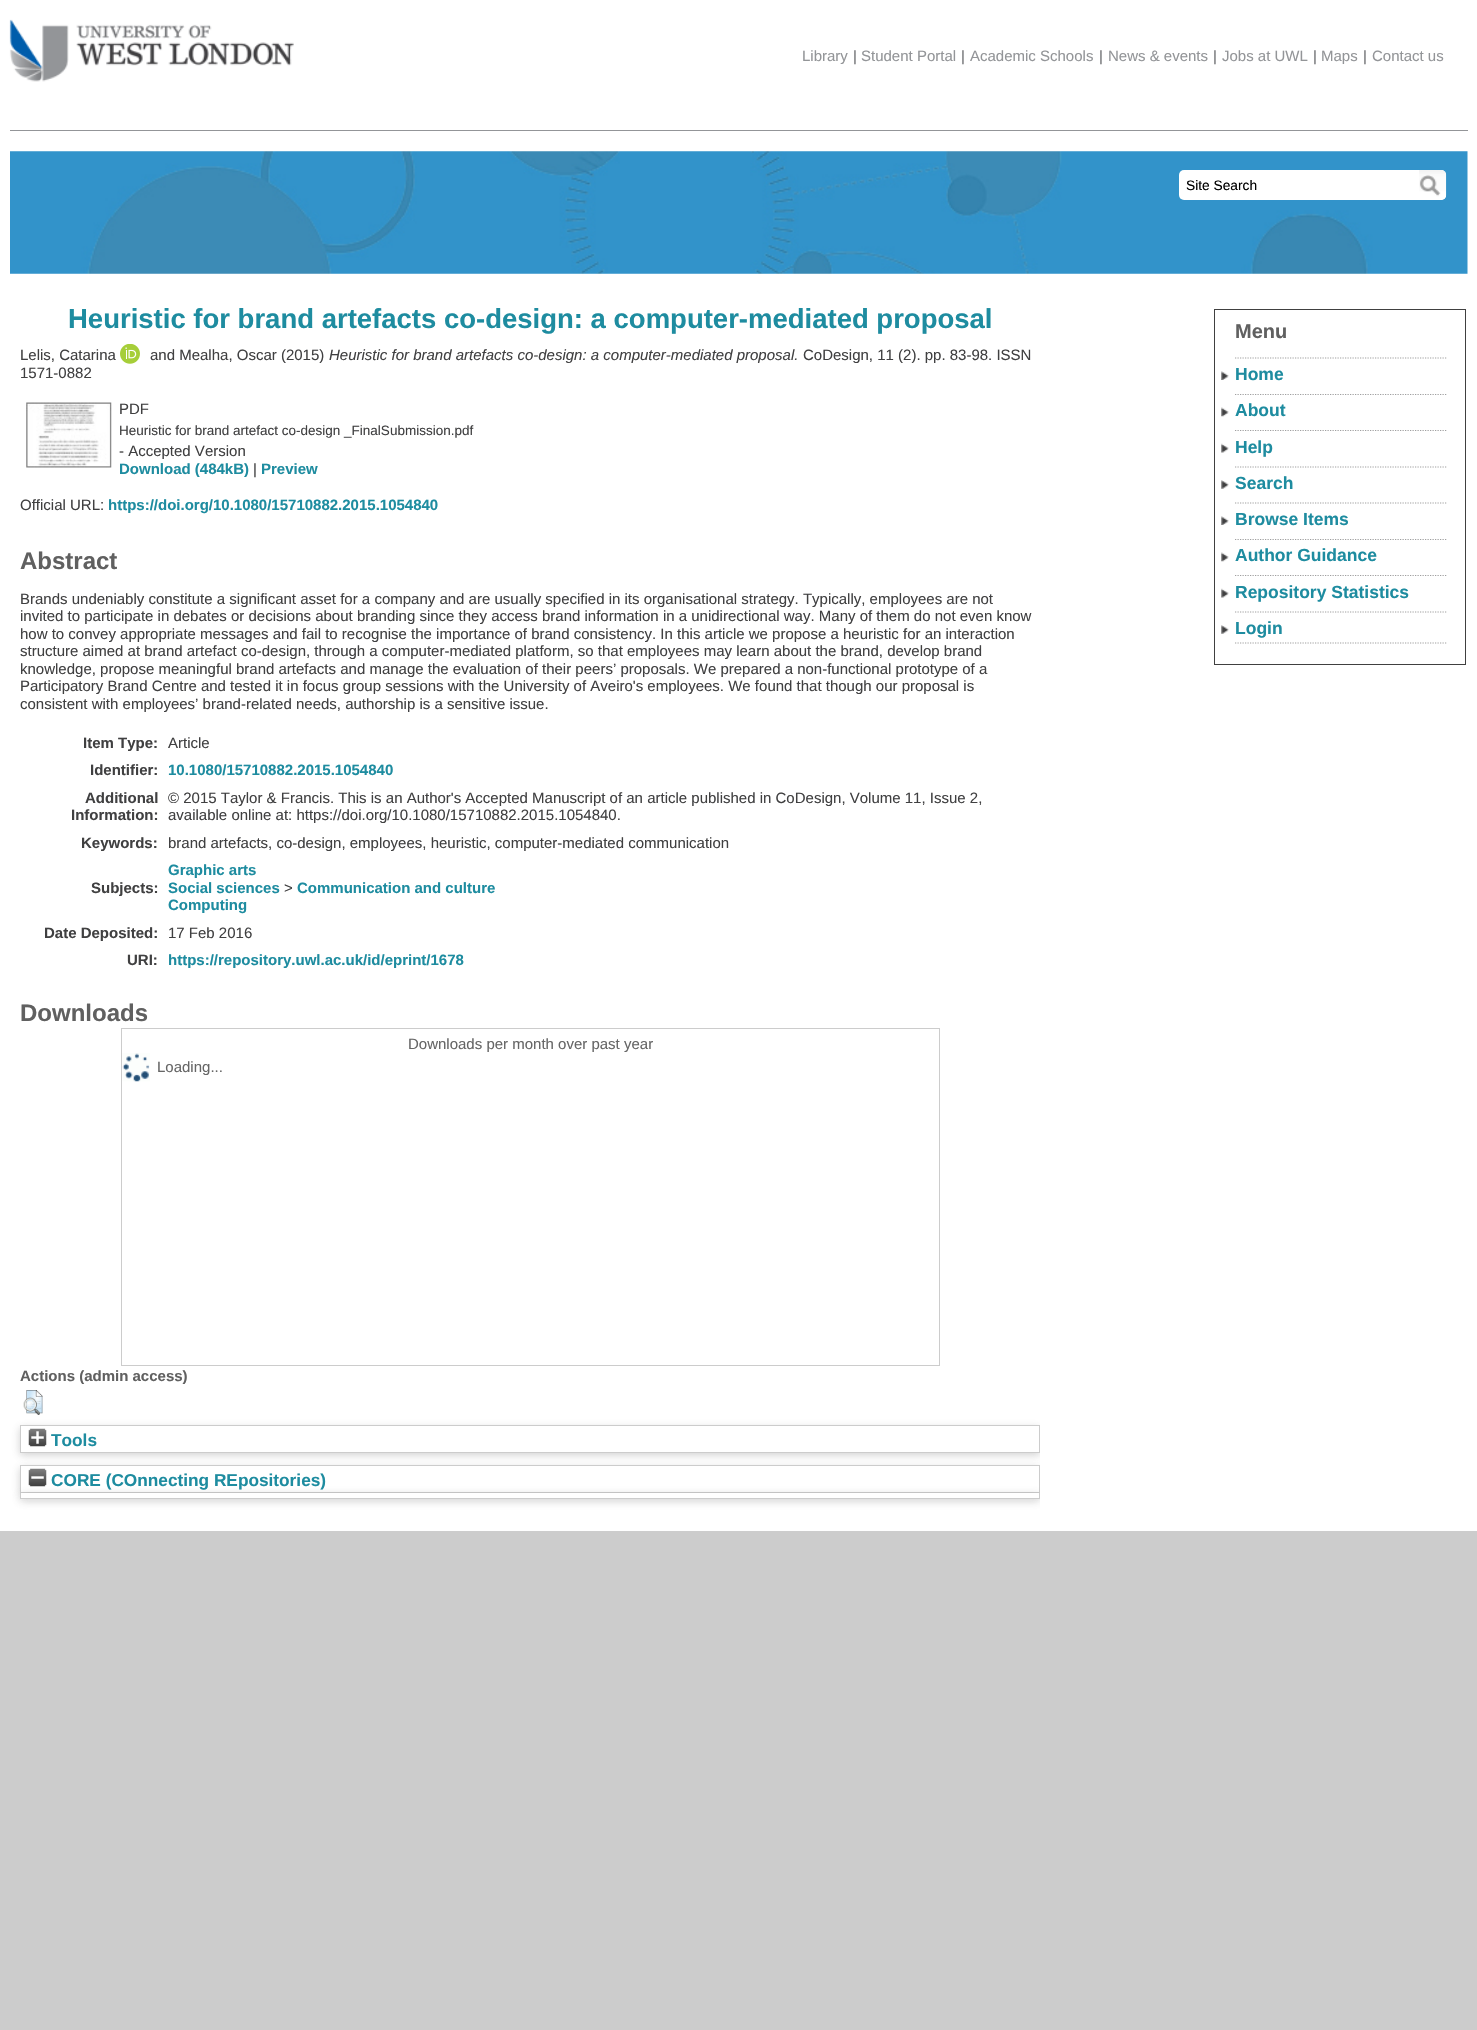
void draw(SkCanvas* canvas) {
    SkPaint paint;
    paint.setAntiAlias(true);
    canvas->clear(0xFFCCCCCC);
    paint.setColor(0xFFFFFFFF);
    canvas->drawRect(SkRect::MakeXYWH(0, 0, 1477, 1531), paint);
    paint.setColor(0xFF939598);
    canvas->drawRect(SkRect::MakeXYWH(10, 130, 1458, 1), paint);
    canvas->drawImageRect(SkImages::DeferredFromEncodedData(SkData::MakeFromFileName("img1.png")), SkRect::MakeXYWH(9, 19, 285, 63), SkSamplingOptions());
    SkFont font1(fontMgr->matchFamilyStyle("Liberation Sans", SkFontStyle::Normal()), 15);
    font1.setSubpixel(true);
    canvas->drawString("Library", 802, 61, font1, paint);
    paint.setColor(0xFF6D6E71);
    canvas->drawString("|", 853, 61, font1, paint);
    paint.setColor(0xFF939598);
    canvas->drawString("Student Portal", 861, 61, font1, paint);
    paint.setColor(0xFF6D6E71);
    canvas->drawString("|", 961, 61, font1, paint);
    paint.setColor(0xFF939598);
    canvas->drawString("Academic Schools", 970, 61, font1, paint);
    paint.setColor(0xFF6D6E71);
    canvas->drawString("|", 1099, 61, font1, paint);
    paint.setColor(0xFF939598);
    canvas->drawString("News & events", 1108, 61, font1, paint);
    paint.setColor(0xFF6D6E71);
    canvas->drawString("|", 1213, 61, font1, paint);
    paint.setColor(0xFF939598);
    canvas->drawString("Jobs at UWL", 1222, 61, font1, paint);
    paint.setColor(0xFF6D6E71);
    canvas->drawString("|", 1313, 61, font1, paint);
    paint.setColor(0xFF939598);
    canvas->drawString("Maps", 1321, 61, font1, paint);
    paint.setColor(0xFF6D6E71);
    canvas->drawString("|", 1363, 61, font1, paint);
    paint.setColor(0xFF939598);
    canvas->drawString("Contact us", 1372, 61, font1, paint);
    canvas->drawImageRect(SkImages::DeferredFromEncodedData(SkData::MakeFromFileName("img3.png")), SkRect::MakeXYWH(10, 151, 1458, 123), SkSamplingOptions());
    paint.setColor(0xFFFFFFFF);
    canvas->drawRoundRect(SkRect::MakeXYWH(1179, 170, 267, 30), 5, 5, paint);
    canvas->drawImageRect(SkImages::DeferredFromEncodedData(SkData::MakeFromFileName("img2.png")), SkRect::MakeXYWH(1419, 170, 28, 30), SkSamplingOptions());
    SkFont font2(fontMgr->matchFamilyStyle("Liberation Sans", SkFontStyle::Normal()), 13.75f);
    font2.setSubpixel(true);
    paint.setColor(0xFF000000);
    canvas->drawString("Site Search", 1186, 190, font2, paint);
    SkFont font3(fontMgr->matchFamilyStyle("Liberation Sans", SkFontStyle::Bold()), 27.5f);
    font3.setSubpixel(true);
    paint.setColor(0xFF1E8CA0);
    canvas->drawString("Heuristic for brand artefacts co-design: a computer-mediated proposal", 68, 328, font3, paint);
    paint.setColor(0xFF404041);
    canvas->drawString("Lelis, Catarina", 20, 360, font1, paint);
    canvas->drawImageRect(SkImages::DeferredFromEncodedData(SkData::MakeFromFileName("img4.png")), SkRect::MakeXYWH(120, 344, 20, 20), SkSamplingOptions());
    canvas->drawString("and Mealha, Oscar (2015)", 150, 360, font1, paint);
    SkFont font4(fontMgr->matchFamilyStyle("Liberation Sans", SkFontStyle::Italic()), 15);
    font4.setSubpixel(true);
    canvas->drawString("Heuristic for brand artefacts co-design: a computer-mediated proposal.", 329, 360, font4, paint);
    canvas->drawString("CoDesign, 11 (2). pp. 83-98. ISSN", 803, 360, font1, paint);
    canvas->drawString("1571-0882", 20, 378, font1, paint);
    canvas->drawImageRect(SkImages::DeferredFromEncodedData(SkData::MakeFromFileName("img5.png")), SkRect::MakeXYWH(26, 402, 86, 66), SkSamplingOptions());
    canvas->drawString("PDF", 119, 414, font1, paint);
    SkFont font5(fontMgr->matchFamilyStyle("Liberation Sans", SkFontStyle::Normal()), 13.5f);
    font5.setSubpixel(true);
    canvas->drawString("Heuristic for brand artefact co-design _FinalSubmission.pdf", 119, 435, font5, paint);
    canvas->drawString("- Accepted Version", 119, 456, font1, paint);
    SkFont font6(fontMgr->matchFamilyStyle("Liberation Sans", SkFontStyle::Bold()), 15);
    font6.setSubpixel(true);
    paint.setColor(0xFF1E8CA0);
    canvas->drawString("Download (484kB)", 119, 474, font6, paint);
    paint.setColor(0xFF404041);
    canvas->drawString("|", 253, 474, font1, paint);
    paint.setColor(0xFF1E8CA0);
    canvas->drawString("Preview", 261, 474, font6, paint);
    paint.setColor(0xFF404041);
    canvas->drawString("Official URL:", 20, 510, font1, paint);
    paint.setColor(0xFF1E8CA0);
    canvas->drawString("https://doi.org/10.1080/15710882.2015.1054840", 108, 510, font6, paint);
    SkFont font7(fontMgr->matchFamilyStyle("Liberation Sans", SkFontStyle::Bold()), 24);
    font7.setSubpixel(true);
    paint.setColor(0xFF606060);
    canvas->drawString("Abstract", 20, 569, font7, paint);
    paint.setColor(0xFF404041);
    canvas->drawString("Brands undeniably constitute a significant asset for a company and are usually specified in its organisational strategy. Typically, employees are not", 20, 604, font1, paint);
    canvas->drawString("invited to participate in debates or decisions about branding since they access brand information in a unidirectional way. Many of them do not even know", 20, 621, font1, paint);
    canvas->drawString("how to convey appropriate messages and fail to recognise the importance of brand consistency. In this article we propose a heuristic for an interaction", 20, 639, font1, paint);
    canvas->drawString("structure aimed at brand artefact co-design, through a computer-mediated platform, so that employees may learn about the brand, develop brand", 20, 656, font1, paint);
    canvas->drawString("knowledge, propose meaningful brand artefacts and manage the evaluation of their peers’ proposals. We prepared a non-functional prototype of a", 20, 674, font1, paint);
    canvas->drawString("Participatory Brand Centre and tested it in focus group sessions with the University of Aveiro's employees. We found that though our proposal is", 20, 691, font1, paint);
    canvas->drawString("consistent with employees’ brand-related needs, authorship is a sensitive issue.", 20, 709, font1, paint);
    canvas->drawString("Item Type:", 83, 748, font6, paint);
    canvas->drawString("Article", 168, 748, font1, paint);
    canvas->drawString("Identifier:", 90, 775, font6, paint);
    paint.setColor(0xFF1E8CA0);
    canvas->drawString("10.1080/15710882.2015.1054840", 168, 775, font6, paint);
    paint.setColor(0xFF404041);
    canvas->drawString("Additional", 85, 803, font6, paint);
    canvas->drawString("Information:", 71, 820, font6, paint);
    canvas->drawString("© 2015 Taylor & Francis. This is an Author's Accepted Manuscript of an article published in CoDesign, Volume 11, Issue 2,", 168, 803, font1, paint);
    canvas->drawString("available online at: https://doi.org/10.1080/15710882.2015.1054840.", 168, 820, font1, paint);
    canvas->drawString("Keywords:", 81, 848, font6, paint);
    canvas->drawString("brand artefacts, co-design, employees, heuristic, computer-mediated communication", 168, 848, font1, paint);
    canvas->drawString("Subjects:", 91, 893, font6, paint);
    paint.setColor(0xFF1E8CA0);
    canvas->drawString("Graphic arts", 168, 875, font6, paint);
    canvas->drawString("Social sciences", 168, 893, font6, paint);
    paint.setColor(0xFF404041);
    canvas->drawString(">", 284, 893, font1, paint);
    paint.setColor(0xFF1E8CA0);
    canvas->drawString("Communication and culture", 297, 893, font6, paint);
    canvas->drawString("Computing", 168, 910, font6, paint);
    paint.setColor(0xFF404041);
    canvas->drawString("Date Deposited:", 44, 938, font6, paint);
    canvas->drawString("17 Feb 2016", 168, 938, font1, paint);
    canvas->drawString("URI:", 127, 965, font6, paint);
    paint.setColor(0xFF1E8CA0);
    canvas->drawString("https://repository.uwl.ac.uk/id/eprint/1678", 168, 965, font6, paint);
    paint.setColor(0xFF606060);
    canvas->drawString("Downloads", 20, 1021, font7, paint);
    paint.setStyle(SkPaint::kStroke_Style);
    paint.setStrokeWidth(1);
    paint.setColor(0xFFCCCCCC);
    canvas->drawRect(SkRect::MakeXYWH(121.5f, 1028.5f, 818, 337), paint);
    paint.setStyle(SkPaint::kFill_Style);
    paint.setColor(0xFF666666);
    canvas->drawString("Downloads per month over past year", 408, 1049, font1, paint);
    canvas->drawImageRect(SkImages::DeferredFromEncodedData(SkData::MakeFromFileName("img6.png")), SkRect::MakeXYWH(122, 1053, 28, 29), SkSamplingOptions());
    canvas->drawString("Loading...", 157, 1072, font1, paint);
    paint.setColor(0xFF606060);
    canvas->drawString("Actions (admin access)", 20, 1381, font6, paint);
    canvas->drawImageRect(SkImages::DeferredFromEncodedData(SkData::MakeFromFileName("img7.png")), SkRect::MakeXYWH(23, 1390, 20, 25), SkSamplingOptions());
    canvas->save();
    canvas->clipRect(SkRect::MakeXYWH(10, 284, 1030, 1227));
    paint.setColor(0x4D646464);
    paint.setMaskFilter(SkMaskFilter::MakeBlur(kNormal_SkBlurStyle, 4));
    canvas->drawRect(SkRect::MakeXYWH(20, 1428, 1020, 27), paint);
    paint.setMaskFilter(nullptr);
    canvas->restore();
    paint.setColor(0xFFFFFFFF);
    canvas->drawRect(SkRect::MakeXYWH(20.5f, 1425.5f, 1019, 27), paint);
    paint.setStyle(SkPaint::kStroke_Style);
    paint.setColor(0xFFCCCCCC);
    canvas->drawRect(SkRect::MakeXYWH(20.5f, 1425.5f, 1019, 27), paint);
    canvas->drawImageRect(SkImages::DeferredFromEncodedData(SkData::MakeFromFileName("img8.png")), SkRect::MakeXYWH(28, 1428, 19, 19), SkSamplingOptions());
    SkFont font8(fontMgr->matchFamilyStyle("Liberation Sans", SkFontStyle::Bold()), 17.25f);
    font8.setSubpixel(true);
    paint.setStyle(SkPaint::kFill_Style);
    paint.setColor(0xFF1E8CA0);
    canvas->drawString("Tools", 51, 1446, font8, paint);
    canvas->save();
    canvas->clipRect(SkRect::MakeXYWH(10, 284, 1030, 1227));
    paint.setColor(0x4D646464);
    paint.setMaskFilter(SkMaskFilter::MakeBlur(kNormal_SkBlurStyle, 4));
    canvas->drawRect(SkRect::MakeXYWH(20, 1468, 1020, 27), paint);
    paint.setMaskFilter(nullptr);
    canvas->restore();
    paint.setColor(0xFFFFFFFF);
    canvas->drawRect(SkRect::MakeXYWH(20.5f, 1465.5f, 1019, 27), paint);
    paint.setStyle(SkPaint::kStroke_Style);
    paint.setColor(0xFFCCCCCC);
    canvas->drawRect(SkRect::MakeXYWH(20.5f, 1465.5f, 1019, 27), paint);
    canvas->save();
    canvas->clipRect(SkRect::MakeXYWH(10, 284, 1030, 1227));
    paint.setStyle(SkPaint::kFill_Style);
    paint.setColor(0x4D646464);
    paint.setMaskFilter(SkMaskFilter::MakeBlur(kNormal_SkBlurStyle, 4));
    canvas->drawRect(SkRect::MakeXYWH(20, 1495, 1020, 6), paint);
    paint.setMaskFilter(nullptr);
    canvas->restore();
    canvas->drawImageRect(SkImages::DeferredFromEncodedData(SkData::MakeFromFileName("img9.png")), SkRect::MakeXYWH(28, 1468, 19, 19), SkSamplingOptions());
    paint.setColor(0xFF1E8CA0);
    canvas->drawString("CORE (COnnecting REpositories)", 51, 1486, font8, paint);
    paint.setColor(0xFFFFFFFF);
    canvas->drawRect(SkRect::MakeXYWH(20, 1493, 1020, 5), paint);
    paint.setColor(0xFFCCCCCC);
    canvas->drawRect(SkRect::MakeXYWH(1039, 1493, 1, 6), paint);
    canvas->drawRect(SkRect::MakeXYWH(20, 1498, 1020, 1), paint);
    canvas->drawRect(SkRect::MakeXYWH(20, 1493, 1, 6), paint);
    paint.setStyle(SkPaint::kStroke_Style);
    paint.setColor(0xFF404040);
    canvas->drawRect(SkRect::MakeXYWH(1214.5f, 309.5f, 251, 355), paint);
    SkFont font9(fontMgr->matchFamilyStyle("Liberation Sans", SkFontStyle::Bold()), 20);
    font9.setSubpixel(true);
    paint.setStyle(SkPaint::kFill_Style);
    paint.setColor(0xFF606060);
    canvas->drawString("Menu", 1235, 338, font9, paint);
    canvas->drawImageRect(SkImages::DeferredFromEncodedData(SkData::MakeFromFileName("img10.png")), SkRect::MakeXYWH(1221, 371, 8, 9), SkSamplingOptions());
    paint.setStyle(SkPaint::kStroke_Style);
    paint.setStrokeWidth(1.2f);
    paint.setColor(0xFF9F9FA0);
    paint.setPathEffect(SkDashPathEffect::Make({{1.25f, 1.25f}}, 0));
    canvas->drawPath(SkPathBuilder().moveTo(1235, 358).lineTo(1447.5f, 358).detach(), paint);
    paint.setPathEffect(nullptr);
    SkFont font10(fontMgr->matchFamilyStyle("Liberation Sans", SkFontStyle::Bold()), 17.5f);
    font10.setSubpixel(true);
    paint.setStyle(SkPaint::kFill_Style);
    paint.setColor(0xFF1E8CA0);
    canvas->drawString("Home", 1235, 380, font10, paint);
    canvas->drawImageRect(SkImages::DeferredFromEncodedData(SkData::MakeFromFileName("img11.png")), SkRect::MakeXYWH(1221, 407, 8, 10), SkSamplingOptions());
    paint.setStyle(SkPaint::kStroke_Style);
    paint.setColor(0xFF9F9FA0);
    paint.setPathEffect(SkDashPathEffect::Make({{1.25f, 1.25f}}, 0));
    canvas->drawPath(SkPathBuilder().moveTo(1235, 394.5f).lineTo(1447.5f, 394.5f).detach(), paint);
    paint.setPathEffect(nullptr);
    paint.setStyle(SkPaint::kFill_Style);
    paint.setColor(0xFF1E8CA0);
    canvas->drawString("About", 1235, 416, font10, paint);
    canvas->drawImageRect(SkImages::DeferredFromEncodedData(SkData::MakeFromFileName("img12.png")), SkRect::MakeXYWH(1221, 443, 8, 10), SkSamplingOptions());
    paint.setStyle(SkPaint::kStroke_Style);
    paint.setColor(0xFF9F9FA0);
    paint.setPathEffect(SkDashPathEffect::Make({{1.25f, 1.25f}}, 0));
    canvas->drawPath(SkPathBuilder().moveTo(1235, 430.5f).lineTo(1447.5f, 430.5f).detach(), paint);
    paint.setPathEffect(nullptr);
    paint.setStyle(SkPaint::kFill_Style);
    paint.setColor(0xFF1E8CA0);
    canvas->drawString("Help", 1235, 453, font10, paint);
    canvas->drawImageRect(SkImages::DeferredFromEncodedData(SkData::MakeFromFileName("img13.png")), SkRect::MakeXYWH(1221, 480, 8, 9), SkSamplingOptions());
    paint.setStyle(SkPaint::kStroke_Style);
    paint.setColor(0xFF9F9FA0);
    paint.setPathEffect(SkDashPathEffect::Make({{1.25f, 1.25f}}, 0));
    canvas->drawPath(SkPathBuilder().moveTo(1235, 467).lineTo(1447.5f, 467).detach(), paint);
    paint.setPathEffect(nullptr);
    paint.setStyle(SkPaint::kFill_Style);
    paint.setColor(0xFF1E8CA0);
    canvas->drawString("Search", 1235, 489, font10, paint);
    canvas->drawImageRect(SkImages::DeferredFromEncodedData(SkData::MakeFromFileName("img10.png")), SkRect::MakeXYWH(1221, 516, 8, 9), SkSamplingOptions());
    paint.setStyle(SkPaint::kStroke_Style);
    paint.setColor(0xFF9F9FA0);
    paint.setPathEffect(SkDashPathEffect::Make({{1.25f, 1.25f}}, 0));
    canvas->drawPath(SkPathBuilder().moveTo(1235, 503).lineTo(1447.5f, 503).detach(), paint);
    paint.setPathEffect(nullptr);
    paint.setStyle(SkPaint::kFill_Style);
    paint.setColor(0xFF1E8CA0);
    canvas->drawString("Browse Items", 1235, 525, font10, paint);
    canvas->drawImageRect(SkImages::DeferredFromEncodedData(SkData::MakeFromFileName("img11.png")), SkRect::MakeXYWH(1221, 552, 8, 10), SkSamplingOptions());
    paint.setStyle(SkPaint::kStroke_Style);
    paint.setColor(0xFF9F9FA0);
    paint.setPathEffect(SkDashPathEffect::Make({{1.25f, 1.25f}}, 0));
    canvas->drawPath(SkPathBuilder().moveTo(1235, 539.5f).lineTo(1447.5f, 539.5f).detach(), paint);
    paint.setPathEffect(nullptr);
    paint.setStyle(SkPaint::kFill_Style);
    paint.setColor(0xFF1E8CA0);
    canvas->drawString("Author Guidance", 1235, 561, font10, paint);
    canvas->drawImageRect(SkImages::DeferredFromEncodedData(SkData::MakeFromFileName("img12.png")), SkRect::MakeXYWH(1221, 588, 8, 10), SkSamplingOptions());
    paint.setStyle(SkPaint::kStroke_Style);
    paint.setColor(0xFF9F9FA0);
    paint.setPathEffect(SkDashPathEffect::Make({{1.25f, 1.25f}}, 0));
    canvas->drawPath(SkPathBuilder().moveTo(1235, 575.5f).lineTo(1447.5f, 575.5f).detach(), paint);
    paint.setPathEffect(nullptr);
    paint.setStyle(SkPaint::kFill_Style);
    paint.setColor(0xFF1E8CA0);
    canvas->drawString("Repository Statistics", 1235, 598, font10, paint);
    canvas->drawImageRect(SkImages::DeferredFromEncodedData(SkData::MakeFromFileName("img13.png")), SkRect::MakeXYWH(1221, 625, 8, 9), SkSamplingOptions());
    paint.setStyle(SkPaint::kStroke_Style);
    paint.setColor(0xFF9F9FA0);
    paint.setPathEffect(SkDashPathEffect::Make({{1.25f, 1.25f}}, 0));
    canvas->drawPath(SkPathBuilder().moveTo(1235, 612).lineTo(1447.5f, 612).detach(), paint);
    paint.setPathEffect(nullptr);
    paint.setPathEffect(SkDashPathEffect::Make({{1.25f, 1.25f}}, 0));
    canvas->drawPath(SkPathBuilder().moveTo(1235, 643).lineTo(1447.5f, 643).detach(), paint);
    paint.setPathEffect(nullptr);
    paint.setStyle(SkPaint::kFill_Style);
    paint.setColor(0xFF1E8CA0);
    canvas->drawString("Login", 1235, 634, font10, paint);
}
